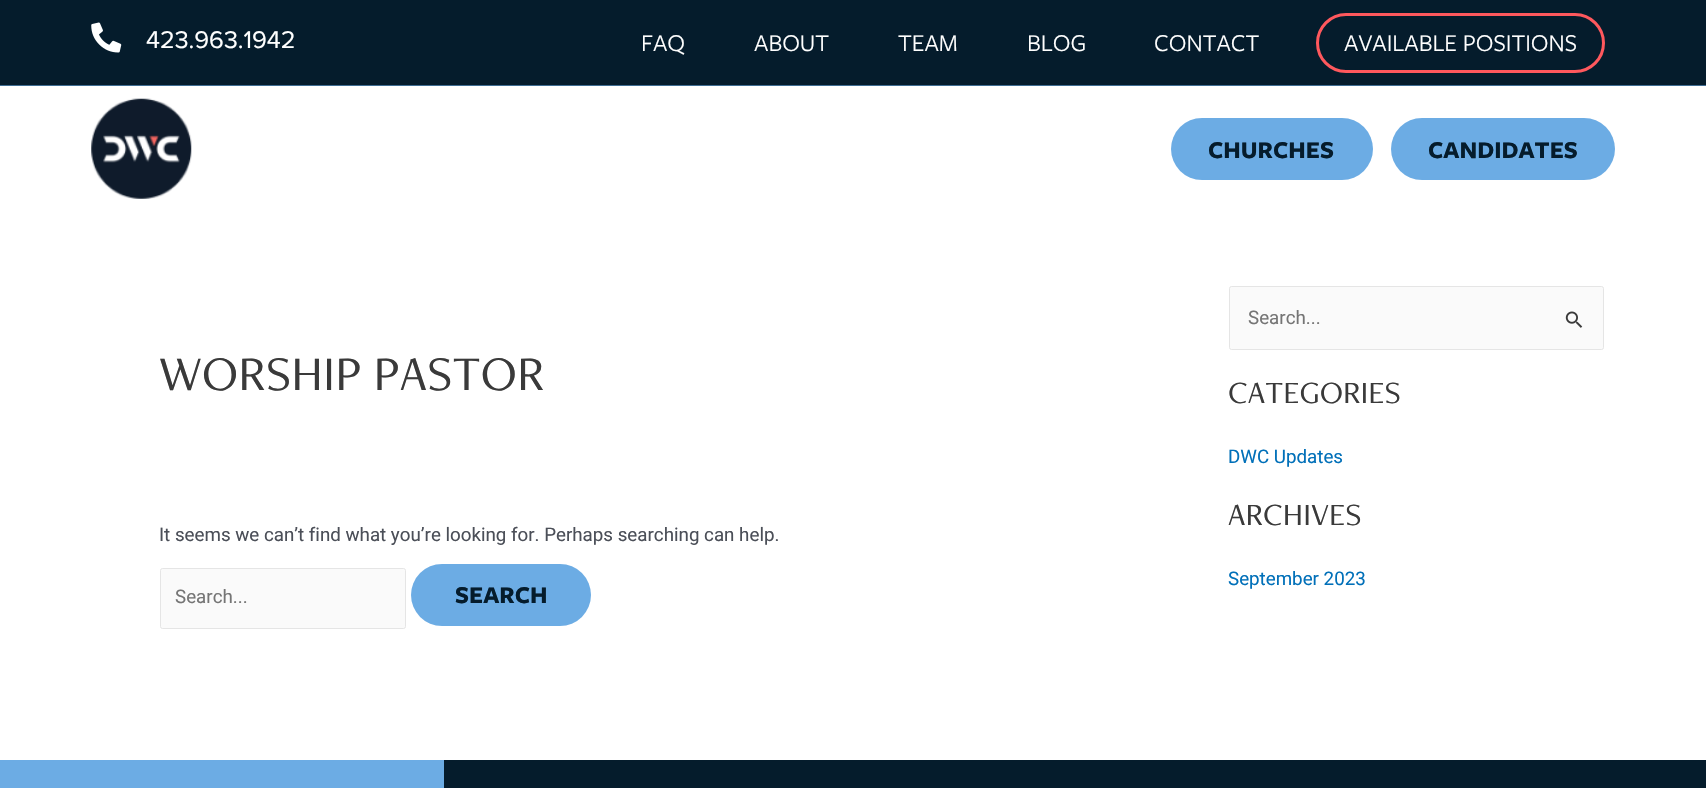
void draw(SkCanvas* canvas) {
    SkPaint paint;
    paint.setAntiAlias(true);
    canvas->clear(0xFFFFFFFF);
    paint.setColor(0xFF051C2C);
    canvas->drawRect(SkRect::MakeXYWH(0, 0, 1706, 85), paint);
    paint.setColor(0xFF3F6D93);
    canvas->drawRect(SkRect::MakeXYWH(0, 85, 1706, 1), paint);
    canvas->drawImageRect(SkImages::DeferredFromEncodedData(SkData::MakeFromFileName("img1.png")), SkRect::MakeXYWH(91, 22, 31, 31), SkSamplingOptions());
    SkFont font1(fontMgr->matchFamilyStyle("Proxima Nova", SkFontStyle::Normal()), 25);
    font1.setSubpixel(true);
    paint.setColor(0xFFFFFFFF);
    canvas->drawString("423.963.1942", 146, 48, font1, paint);
    SkFont font2(fontMgr->matchFamilyStyle("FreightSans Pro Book", SkFontStyle::Normal()), 25);
    font2.setSubpixel(true);
    canvas->drawString("FAQ", 641, 51, font2, paint);
    canvas->drawString("ABOUT", 754, 51, font2, paint);
    canvas->drawString("TEAM", 898, 51, font2, paint);
    canvas->drawString("BLOG", 1027, 51, font2, paint);
    canvas->drawString("CONTACT", 1154, 51, font2, paint);
    paint.setStyle(SkPaint::kStroke_Style);
    paint.setStrokeWidth(3);
    paint.setColor(0xFFFF585D);
    canvas->drawRoundRect(SkRect::MakeXYWH(1317.5f, 14.5f, 286, 57), 28.5f, 28.5f, paint);
    paint.setStyle(SkPaint::kFill_Style);
    paint.setColor(0xFFFFFFFF);
    canvas->drawString("AVAILABLE POSITIONS", 1344, 51, font2, paint);
    canvas->drawImageRect(SkImages::DeferredFromEncodedData(SkData::MakeFromFileName("img2.png")), SkRect::MakeXYWH(91, 98, 101, 101), SkSamplingOptions());
    paint.setColor(0xFF6CACE4);
    canvas->drawRoundRect(SkRect::MakeXYWH(1171, 118, 202, 62), 31, 31, paint);
    SkFont font3(fontMgr->matchFamilyStyle("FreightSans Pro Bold", SkFontStyle::Bold()), 25);
    font3.setSubpixel(true);
    paint.setColor(0xFF051C2C);
    canvas->drawString("CHURCHES", 1208, 158, font3, paint);
    paint.setColor(0xFF6CACE4);
    canvas->drawRoundRect(SkRect::MakeXYWH(1391, 118, 224, 62), 31, 31, paint);
    paint.setColor(0xFF051C2C);
    canvas->drawString("CANDIDATES", 1428, 158, font3, paint);
    SkFont font4(fontMgr->matchFamilyStyle("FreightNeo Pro", SkFontStyle::Normal()), 50);
    font4.setSubpixel(true);
    paint.setColor(0xFF3A3A3A);
    canvas->drawString("WORSHIP PASTOR", 159, 390, font4, paint);
    SkFont font5(fontMgr->matchFamilyStyle("Roboto", SkFontStyle::Normal()), 18.75f);
    font5.setSubpixel(true);
    paint.setColor(0xFF4B4F58);
    canvas->drawString("It seems we can’t find what you’re looking for. Perhaps searching can help.", 159, 541, font5, paint);
    paint.setColor(0xFFFAFAFA);
    canvas->drawRoundRect(SkRect::MakeXYWH(160.5f, 568.5f, 245, 60), 2, 2, paint);
    paint.setStyle(SkPaint::kStroke_Style);
    paint.setStrokeWidth(1);
    paint.setColor(0xFFE5E5E5);
    canvas->drawRoundRect(SkRect::MakeXYWH(160.5f, 568.5f, 245, 60), 2, 2, paint);
    paint.setStyle(SkPaint::kFill_Style);
    paint.setColor(0xFF757575);
    canvas->drawString("Search...", 175, 603, font5, paint);
    paint.setColor(0xFF6CACE4);
    canvas->drawRoundRect(SkRect::MakeXYWH(411, 564, 180, 62), 31, 31, paint);
    paint.setColor(0xFF051C2C);
    canvas->drawString("SEARCH", 455, 603, font3, paint);
    paint.setColor(0xFFFAFAFA);
    canvas->drawRoundRect(SkRect::MakeXYWH(1229.5f, 286.5f, 374, 63), 2, 2, paint);
    paint.setStyle(SkPaint::kStroke_Style);
    paint.setColor(0xFFE5E5E5);
    canvas->drawRoundRect(SkRect::MakeXYWH(1229.5f, 286.5f, 374, 63), 2, 2, paint);
    paint.setStyle(SkPaint::kFill_Style);
    paint.setColor(0xFF757575);
    canvas->drawString("Search...", 1248, 324, font5, paint);
    canvas->drawImageRect(SkImages::DeferredFromEncodedData(SkData::MakeFromFileName("img3.png")), SkRect::MakeXYWH(1565, 311, 18, 17), SkSamplingOptions());
    SkFont font6(fontMgr->matchFamilyStyle("FreightNeo Pro", SkFontStyle::Normal()), 32);
    font6.setSubpixel(true);
    paint.setColor(0xFF3A3A3A);
    canvas->drawString("CATEGORIES", 1228, 403, font6, paint);
    paint.setColor(0xFF0170B9);
    canvas->drawString("DWC Updates", 1228, 463, font5, paint);
    paint.setColor(0xFF3A3A3A);
    canvas->drawString("ARCHIVES", 1228, 525, font6, paint);
    paint.setColor(0xFF0170B9);
    canvas->drawString("September 2023", 1228, 585, font5, paint);
    paint.setColor(0xFF051C2C);
    canvas->drawRect(SkRect::MakeXYWH(444, 760, 1262, 28), paint);
    paint.setColor(0xFF6CACE4);
    canvas->drawRect(SkRect::MakeXYWH(0, 760, 444, 28), paint);
}
